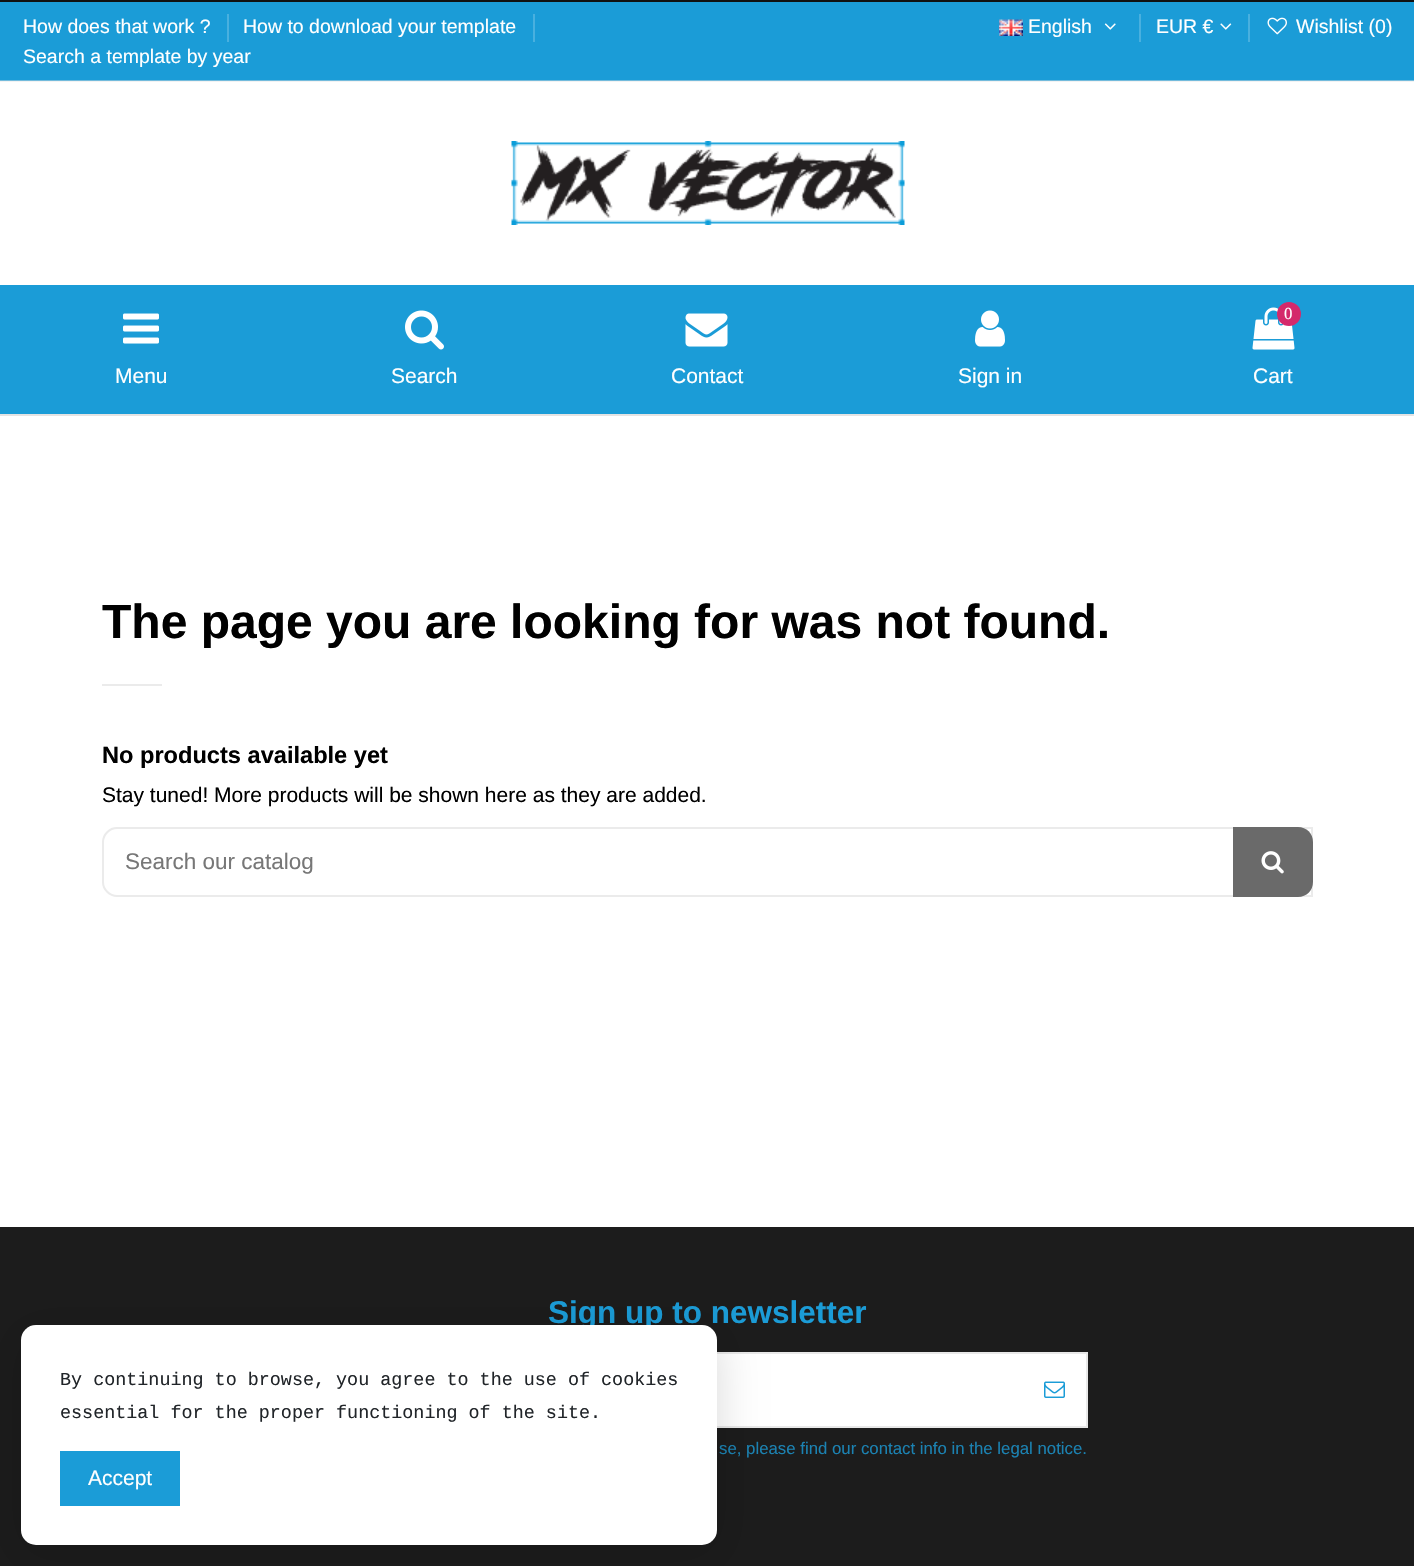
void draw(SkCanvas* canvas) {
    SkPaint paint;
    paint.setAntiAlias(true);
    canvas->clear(0xFF111111);
    paint.setColor(0xFFFFFFFF);
    canvas->drawRect(SkRect::MakeXYWH(0, 82, 1414, 203), paint);
    paint.setColor(0xFFF3F3F3);
    canvas->drawRect(SkRect::MakeXYWH(0, 81, 1414, 1), paint);
    paint.setColor(0xFF1B9CD7);
    canvas->drawRect(SkRect::MakeXYWH(0, 2, 1414, 78), paint);
    paint.setColor(0xFF73BBDC);
    canvas->drawRect(SkRect::MakeXYWH(0, 80, 1414, 1), paint);
    SkFont font1(fontMgr->matchFamilyStyle("Liberation Sans", SkFontStyle::Normal()), 19.5f);
    font1.setSubpixel(true);
    paint.setColor(0xFFFFFFFF);
    canvas->drawString("How does that work ?", 23, 33, font1, paint);
    paint.setColor(0xFF49B0DF);
    canvas->drawRect(SkRect::MakeXYWH(227, 14, 2, 28), paint);
    paint.setColor(0xFFFFFFFF);
    canvas->drawString("How to download your template", 243, 33, font1, paint);
    paint.setColor(0xFF49B0DF);
    canvas->drawRect(SkRect::MakeXYWH(533, 14, 2, 28), paint);
    paint.setColor(0xFFFFFFFF);
    canvas->drawString("Search a template by year", 23, 63, font1, paint);
    canvas->drawImageRect(SkImages::DeferredFromEncodedData(SkData::MakeFromFileName("img1.png")), SkRect::MakeXYWH(999, 19, 24, 17), SkSamplingOptions());
    canvas->drawString("English", 1028, 33, font1, paint);
    canvas->drawImageRect(SkImages::DeferredFromEncodedData(SkData::MakeFromFileName("img2.png")), SkRect::MakeXYWH(1104, 23, 12, 7), SkSamplingOptions());
    paint.setColor(0xFF49B0DF);
    canvas->drawRect(SkRect::MakeXYWH(1139, 14, 2, 28), paint);
    paint.setColor(0xFFFFFFFF);
    canvas->drawString("EUR €", 1156, 33, font1, paint);
    canvas->drawImageRect(SkImages::DeferredFromEncodedData(SkData::MakeFromFileName("img3.png")), SkRect::MakeXYWH(1220, 23, 12, 7), SkSamplingOptions());
    paint.setColor(0xFF49B0DF);
    canvas->drawRect(SkRect::MakeXYWH(1248, 14, 2, 28), paint);
    canvas->drawImageRect(SkImages::DeferredFromEncodedData(SkData::MakeFromFileName("img4.png")), SkRect::MakeXYWH(1267, 17, 20, 18), SkSamplingOptions());
    paint.setColor(0xFFFFFFFF);
    canvas->drawString("Wishlist (0)", 1296, 33, font1, paint);
    paint.setColor(0xFFE3E3E3);
    canvas->drawRect(SkRect::MakeXYWH(0, 414, 1414, 2), paint);
    canvas->drawImageRect(SkImages::DeferredFromEncodedData(SkData::MakeFromFileName("img5.png")), SkRect::MakeXYWH(511, 141, 394, 84), SkSamplingOptions());
    paint.setColor(0xFF1B9CD7);
    canvas->drawRect(SkRect::MakeXYWH(0, 285, 1414, 129), paint);
    canvas->drawImageRect(SkImages::DeferredFromEncodedData(SkData::MakeFromFileName("img6.png")), SkRect::MakeXYWH(123, 313, 36, 31), SkSamplingOptions());
    SkFont font2(fontMgr->matchFamilyStyle("Liberation Sans", SkFontStyle::Normal()), 21);
    font2.setSubpixel(true);
    paint.setColor(0xFFFFFFFF);
    canvas->drawString("Menu", 115, 383, font2, paint);
    canvas->drawImageRect(SkImages::DeferredFromEncodedData(SkData::MakeFromFileName("img7.png")), SkRect::MakeXYWH(405, 310, 39, 40), SkSamplingOptions());
    canvas->drawString("Search", 391, 383, font2, paint);
    canvas->drawImageRect(SkImages::DeferredFromEncodedData(SkData::MakeFromFileName("img8.png")), SkRect::MakeXYWH(685, 313, 43, 34), SkSamplingOptions());
    canvas->drawString("Contact", 671, 383, font2, paint);
    canvas->drawImageRect(SkImages::DeferredFromEncodedData(SkData::MakeFromFileName("img9.png")), SkRect::MakeXYWH(975, 310, 30, 37), SkSamplingOptions());
    canvas->drawString("Sign in", 958, 383, font2, paint);
    canvas->drawImageRect(SkImages::DeferredFromEncodedData(SkData::MakeFromFileName("img10.png")), SkRect::MakeXYWH(1252, 307, 43, 43), SkSamplingOptions());
    paint.setColor(0xFFD4296B);
    canvas->drawCircle(1289, 314, 12, paint);
    SkFont font3(fontMgr->matchFamilyStyle("Liberation Serif", SkFontStyle::Normal()), 16.8f);
    font3.setSubpixel(true);
    paint.setColor(0xFFFFFFFF);
    canvas->drawString("0", 1284, 319, font3, paint);
    canvas->drawString("Cart", 1253, 383, font2, paint);
    canvas->drawRect(SkRect::MakeXYWH(0, 416, 1414, 811), paint);
    SkFont font4(fontMgr->matchFamilyStyle("Liberation Sans", SkFontStyle::Bold()), 48);
    font4.setSubpixel(true);
    paint.setColor(0xFF000000);
    canvas->drawString("The page you are looking for was not found.", 102, 638, font4, paint);
    paint.setColor(0xFFEBEBEB);
    canvas->drawRect(SkRect::MakeXYWH(102, 684, 60, 2), paint);
    SkFont font5(fontMgr->matchFamilyStyle("Liberation Sans", SkFontStyle::Bold()), 23.6f);
    font5.setSubpixel(true);
    paint.setColor(0xFF000000);
    canvas->drawString("No products available yet", 102, 763, font5, paint);
    canvas->drawString("Stay tuned! More products will be shown here as they are added.", 102, 802, font2, paint);
    paint.setStyle(SkPaint::kStroke_Style);
    paint.setStrokeWidth(2);
    paint.setColor(0xFFEBEBEB);
    canvas->drawPath(SkPathBuilder().moveTo(117, 828).lineTo(1312, 828).lineTo(1312, 896).lineTo(117, 896).cubicTo(109.5f, 896, 103, 889.5f, 103, 882).lineTo(103, 842).cubicTo(103, 834.5f, 109.5f, 828, 117, 828).close().detach(), paint);
    SkFont font6(fontMgr->matchFamilyStyle("Liberation Sans", SkFontStyle::Normal()), 22.5f);
    font6.setSubpixel(true);
    paint.setStyle(SkPaint::kFill_Style);
    paint.setColor(0xFF777777);
    canvas->drawString("Search our catalog", 125, 869, font6, paint);
    paint.setColor(0xFF6A6A6A);
    canvas->drawPath(SkPathBuilder().moveTo(1233, 827).lineTo(1298, 827).cubicTo(1306.5f, 827, 1313, 833.5f, 1313, 842).lineTo(1313, 882).cubicTo(1313, 890.5f, 1306.5f, 897, 1298, 897).lineTo(1233, 897).close().detach(), paint);
    canvas->drawImageRect(SkImages::DeferredFromEncodedData(SkData::MakeFromFileName("img11.png")), SkRect::MakeXYWH(1261, 851, 23, 23), SkSamplingOptions());
    paint.setColor(0xFF1C1C1C);
    canvas->drawRect(SkRect::MakeXYWH(0, 1227, 1414, 339), paint);
    SkFont font7(fontMgr->matchFamilyStyle("Liberation Sans", SkFontStyle::Bold()), 31.5f);
    font7.setSubpixel(true);
    paint.setColor(0xFF1B9CD7);
    canvas->drawString("Sign up to newsletter", 548, 1323, font7, paint);
    paint.setColor(0xFFFFFFFF);
    canvas->drawRect(SkRect::MakeXYWH(717, 1354, 369, 72), paint);
    paint.setStyle(SkPaint::kStroke_Style);
    paint.setColor(0xFFE8E8E8);
    canvas->drawRect(SkRect::MakeXYWH(328, 1353, 759, 74), paint);
    canvas->drawImageRect(SkImages::DeferredFromEncodedData(SkData::MakeFromFileName("img12.png")), SkRect::MakeXYWH(1044, 1381, 21, 17), SkSamplingOptions());
    SkFont font8(fontMgr->matchFamilyStyle("Liberation Sans", SkFontStyle::Normal()), 16.8f);
    font8.setSubpixel(true);
    paint.setStyle(SkPaint::kFill_Style);
    paint.setColor(0xFF1B82B2);
    canvas->drawString("se, please find our contact info in the legal notice.", 719, 1454, font8, paint);
    paint.setColor(0x26000000);
    paint.setMaskFilter(SkMaskFilter::MakeBlur(kNormal_SkBlurStyle, 22.5f));
    canvas->drawRoundRect(SkRect::MakeXYWH(21, 1334, 696, 220), 15, 15, paint);
    paint.setMaskFilter(nullptr);
    paint.setColor(0xFFFFFFFF);
    canvas->drawRoundRect(SkRect::MakeXYWH(21, 1325, 696, 220), 15, 15, paint);
    SkFont font9(fontMgr->matchFamilyStyle("Liberation Mono", SkFontStyle::Normal()), 18.4f);
    font9.setSubpixel(true);
    paint.setColor(0xFF212529);
    canvas->drawString("By continuing to browse, you agree to the use of cookies", 60, 1385, font9, paint);
    canvas->drawString("essential for the proper functioning of the site.", 60, 1418, font9, paint);
    paint.setColor(0xFF1B9CD7);
    canvas->drawRect(SkRect::MakeXYWH(60, 1451, 120, 55), paint);
    paint.setColor(0xFFFFFFFF);
    canvas->drawString("Accept", 88, 1485, font2, paint);
}
